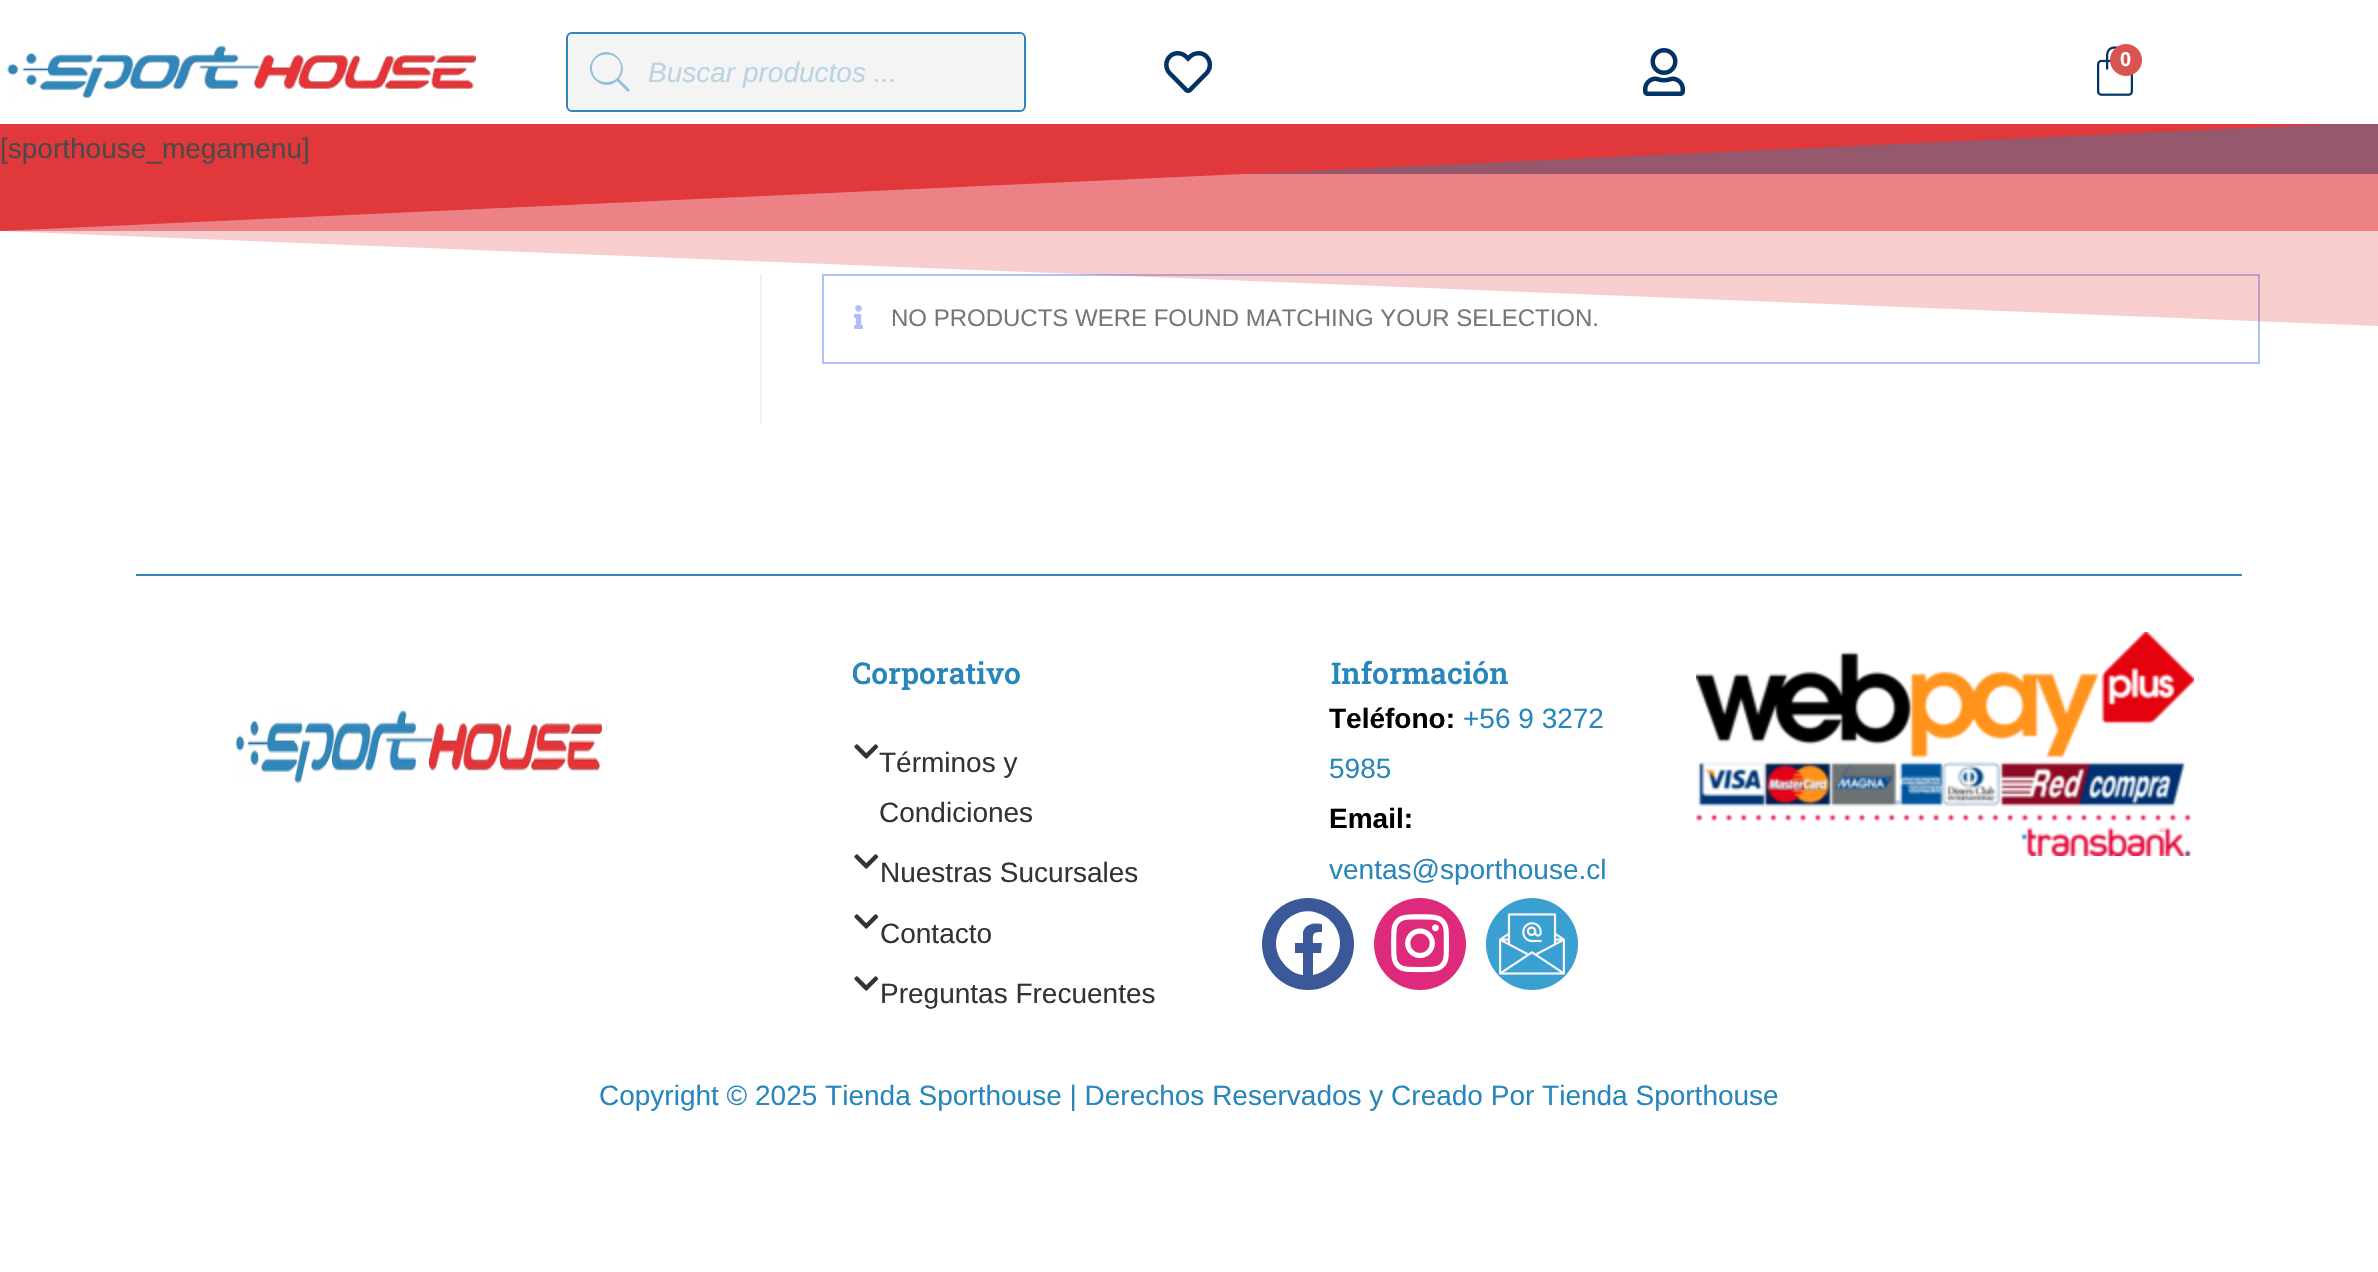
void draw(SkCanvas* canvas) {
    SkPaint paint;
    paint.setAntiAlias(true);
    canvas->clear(0xFFFFFFFF);
    paint.setColor(0xFFF09B9D);
    canvas->drawRect(SkRect::MakeXYWH(0, 174, 2378, 57), paint);
    paint.setColor(0xFF7D627D);
    canvas->drawRect(SkRect::MakeXYWH(1244, 124, 1134, 50), paint);
    paint.setColor(0xFFE0373A);
    canvas->drawPath(SkPathBuilder().moveTo(2378, 122).lineTo(-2, 122).lineTo(-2, 231).close().detach(), paint);
    paint.setColor(0xFFF1F1F1);
    canvas->drawRect(SkRect::MakeXYWH(760, 274, 2, 150), paint);
    paint.setStyle(SkPaint::kStroke_Style);
    paint.setStrokeWidth(2);
    paint.setColor(0xFFB1BEFD);
    canvas->drawRect(SkRect::MakeXYWH(823, 275, 1436, 88), paint);
    canvas->drawImageRect(SkImages::DeferredFromEncodedData(SkData::MakeFromFileName("img5.png")), SkRect::MakeXYWH(854, 305, 9, 24), SkSamplingOptions());
    SkFont font1(fontMgr->matchFamilyStyle("Liberation Sans", SkFontStyle::Normal()), 24);
    font1.setSubpixel(true);
    paint.setStyle(SkPaint::kFill_Style);
    paint.setColor(0xFF777777);
    canvas->drawString("NO PRODUCTS WERE FOUND MATCHING YOUR SELECTION.", 891, 326, font1, paint);
    paint.setColor(0x40E0373A);
    canvas->drawPath(SkPathBuilder().moveTo(-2, 122).lineTo(2378, 122).lineTo(2378, 326).lineTo(-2, 231).close().detach(), paint);
    paint.setColor(0xFFFFFFFF);
    canvas->drawRect(SkRect::MakeXYWH(0, 122, 2378, 2), paint);
    canvas->drawImageRect(SkImages::DeferredFromEncodedData(SkData::MakeFromFileName("img1.png")), SkRect::MakeXYWH(7, 45, 469, 54), SkSamplingOptions());
    canvas->drawImageRect(SkImages::DeferredFromEncodedData(SkData::MakeFromFileName("img2.png")), SkRect::MakeXYWH(1164, 51, 49, 42), SkSamplingOptions());
    canvas->drawImageRect(SkImages::DeferredFromEncodedData(SkData::MakeFromFileName("img3.png")), SkRect::MakeXYWH(1643, 48, 42, 48), SkSamplingOptions());
    canvas->drawImageRect(SkImages::DeferredFromEncodedData(SkData::MakeFromFileName("img4.png")), SkRect::MakeXYWH(2097, 46, 36, 50), SkSamplingOptions());
    paint.setColor(0xFFD9534F);
    canvas->drawCircle(2126, 60, 16, paint);
    SkFont font2(fontMgr->matchFamilyStyle("Liberation Sans", SkFontStyle::Bold()), 20);
    font2.setSubpixel(true);
    paint.setColor(0xFFFFFFFF);
    canvas->drawString("0", 2120, 66, font2, paint);
    paint.setColor(0xFFF4F4F4);
    canvas->drawRoundRect(SkRect::MakeXYWH(567, 33, 458, 78), 5, 5, paint);
    paint.setStyle(SkPaint::kStroke_Style);
    paint.setColor(0xFF2E89BB);
    canvas->drawRoundRect(SkRect::MakeXYWH(567, 33, 458, 78), 5, 5, paint);
    paint.setStyle(SkPaint::kFill_Style);
    paint.setColor(0xFF91BFD8);
    canvas->drawPath(SkPathBuilder().moveTo(630, 90).lineTo(619, 79).cubicTo(632, 64, 610, 42, 595, 57).cubicTo(580, 72, 602, 94, 617, 81).lineTo(628, 92).close().moveTo(592, 68).cubicTo(592, 50, 621, 50, 621, 68).cubicTo(621, 87, 592, 87, 592, 68).close().detach(), paint);
    SkFont font3(fontMgr->matchFamilyStyle("Liberation Sans", SkFontStyle::Italic()), 28);
    font3.setSubpixel(true);
    paint.setColor(0xFFB9D4E3);
    canvas->drawString("Buscar productos ...", 648, 82, font3, paint);
    SkFont font4(fontMgr->matchFamilyStyle("Liberation Sans", SkFontStyle::Normal()), 28);
    font4.setSubpixel(true);
    paint.setColor(0xFF4A4A4A);
    canvas->drawString("[sporthouse_megamenu]", 0, 158, font4, paint);
    paint.setColor(0xFF2E89BB);
    canvas->drawRect(SkRect::MakeXYWH(136, 574, 2106, 2), paint);
    canvas->drawImageRect(SkImages::DeferredFromEncodedData(SkData::MakeFromFileName("img6.png")), SkRect::MakeXYWH(235, 709, 367, 75), SkSamplingOptions());
    SkFont font5(fontMgr->matchFamilyStyle("Roboto Slab", SkFontStyle(600, SkFontStyle::kNormal_Width, SkFontStyle::kUpright_Slant)), 30);
    font5.setSubpixel(true);
    paint.setColor(0xFF2986BB);
    canvas->drawString("Corporativo", 852, 684, font5, paint);
    canvas->drawImageRect(SkImages::DeferredFromEncodedData(SkData::MakeFromFileName("img7.png")), SkRect::MakeXYWH(854, 744, 25, 15), SkSamplingOptions());
    paint.setColor(0xFF333333);
    canvas->drawString("Términos y", 879, 772, font4, paint);
    canvas->drawString("Condiciones", 879, 822, font4, paint);
    canvas->drawImageRect(SkImages::DeferredFromEncodedData(SkData::MakeFromFileName("img7.png")), SkRect::MakeXYWH(854, 854, 25, 15), SkSamplingOptions());
    canvas->drawString("Nuestras Sucursales", 880, 882, font4, paint);
    canvas->drawImageRect(SkImages::DeferredFromEncodedData(SkData::MakeFromFileName("img7.png")), SkRect::MakeXYWH(854, 914, 25, 15), SkSamplingOptions());
    canvas->drawString("Contacto", 880, 943, font4, paint);
    canvas->drawImageRect(SkImages::DeferredFromEncodedData(SkData::MakeFromFileName("img7.png")), SkRect::MakeXYWH(854, 976, 25, 15), SkSamplingOptions());
    canvas->drawString("Preguntas Frecuentes", 880, 1003, font4, paint);
    paint.setColor(0xFF2986BB);
    canvas->drawString("Información", 1331, 684, font5, paint);
    SkFont font6(fontMgr->matchFamilyStyle("Liberation Sans", SkFontStyle::Bold()), 28);
    font6.setSubpixel(true);
    paint.setColor(0xFF000000);
    canvas->drawString("Teléfono:", 1329, 728, font6, paint);
    paint.setColor(0xFF2986BB);
    canvas->drawString("+56 9 3272", 1463, 728, font4, paint);
    canvas->drawString("5985", 1329, 778, font4, paint);
    paint.setColor(0xFF000000);
    canvas->drawString("Email:", 1329, 828, font6, paint);
    paint.setColor(0xFF2986BB);
    canvas->drawString("ventas@sporthouse.cl", 1329, 879, font4, paint);
    paint.setColor(0xFF3B5998);
    canvas->drawCircle(1308, 944, 46, paint);
    paint.setColor(0xFFFFFFFF);
    canvas->drawPath(SkPathBuilder().moveTo(1340, 943).cubicTo(1340, 959, 1328, 972, 1313, 975).lineTo(1313, 953).lineTo(1321, 953).lineTo(1322, 943).lineTo(1313, 943).cubicTo(1313, 934, 1312, 932, 1322, 932).lineTo(1322, 924).cubicTo(1315, 923, 1306, 923, 1303, 932).lineTo(1303, 943).lineTo(1295, 943).lineTo(1295, 953).lineTo(1303, 953).lineTo(1303, 975).cubicTo(1295, 974, 1289, 970, 1284, 964).cubicTo(1260, 936, 1295, 896, 1326, 917).cubicTo(1335, 923, 1340, 933, 1340, 943).close().detach(), paint);
    paint.setColor(0xFFDD2A7B);
    canvas->drawCircle(1420, 944, 46, paint);
    canvas->drawImageRect(SkImages::DeferredFromEncodedData(SkData::MakeFromFileName("img8.png")), SkRect::MakeXYWH(1391, 914, 58, 59), SkSamplingOptions());
    paint.setColor(0xFF3AA0D1);
    canvas->drawCircle(1532, 944, 46, paint);
    canvas->drawImageRect(SkImages::DeferredFromEncodedData(SkData::MakeFromFileName("img9.png")), SkRect::MakeXYWH(1499, 913, 66, 62), SkSamplingOptions());
    canvas->drawImageRect(SkImages::DeferredFromEncodedData(SkData::MakeFromFileName("img10.png")), SkRect::MakeXYWH(1696, 632, 498, 224), SkSamplingOptions());
    paint.setColor(0xFF2986BB);
    canvas->drawString("Copyright © 2025 Tienda Sporthouse | Derechos Reservados y Creado Por Tienda Sporthouse", 599, 1105, font4, paint);
}
